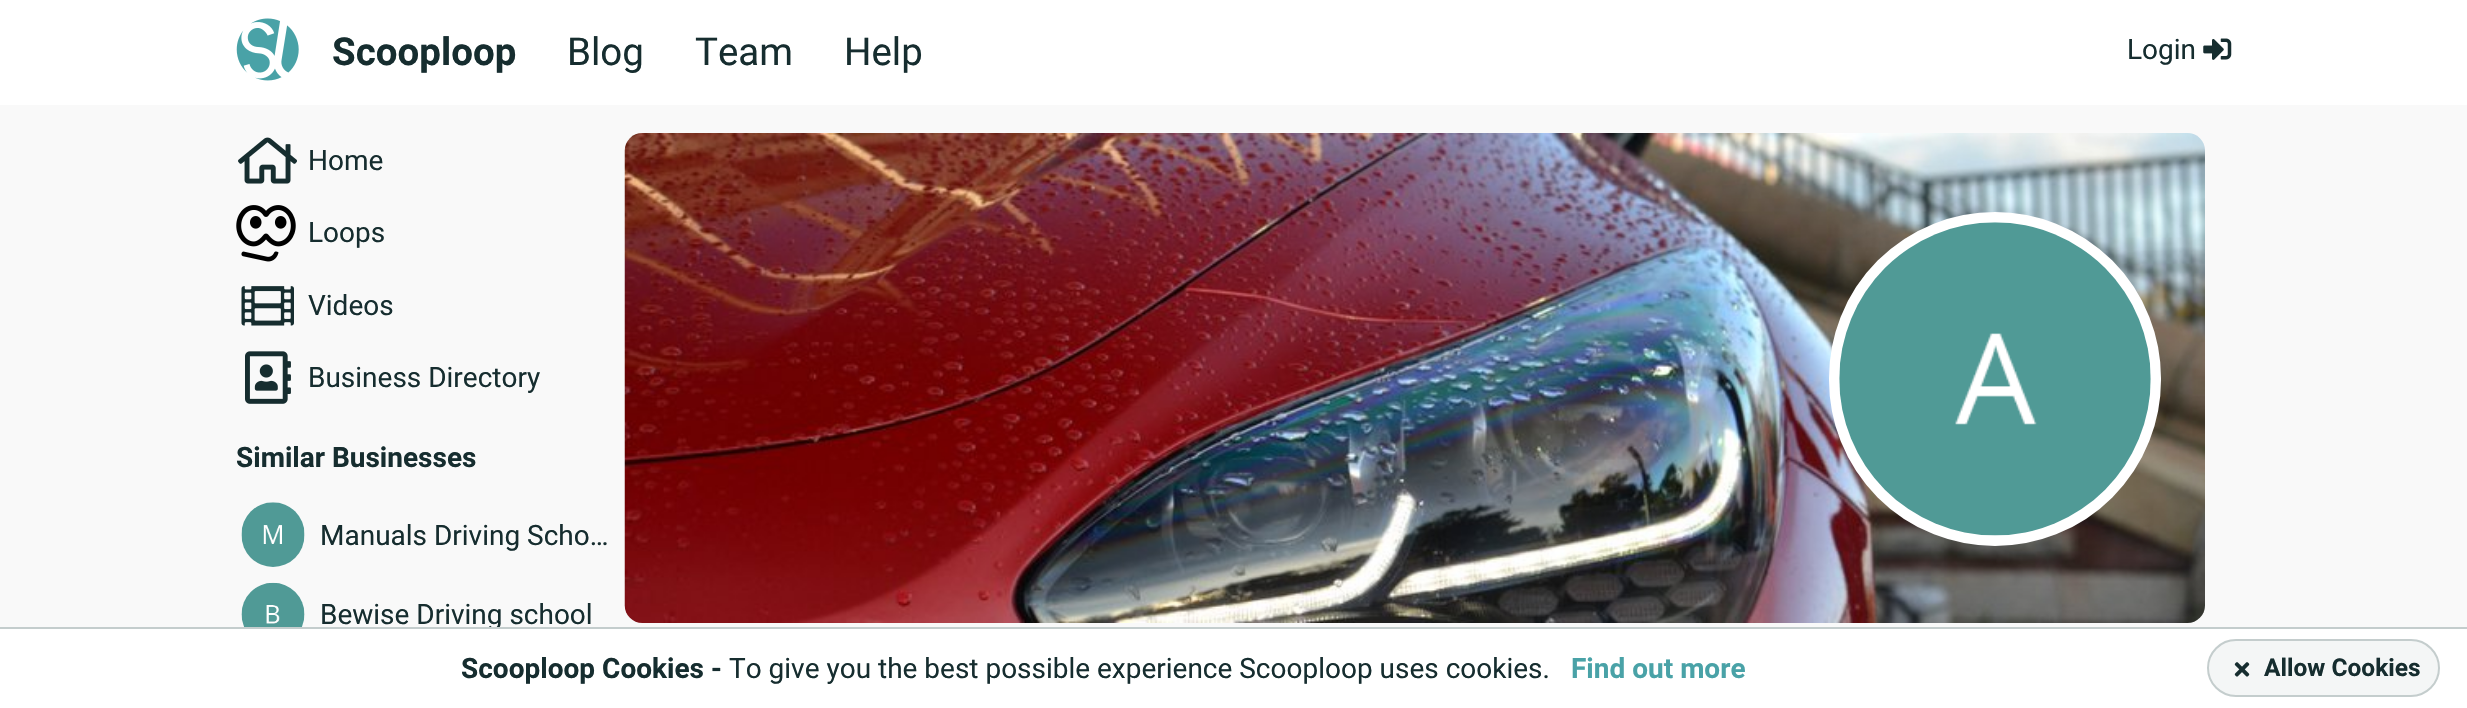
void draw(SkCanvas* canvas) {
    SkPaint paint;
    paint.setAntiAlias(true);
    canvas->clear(0xFFF9F9F9);
    paint.setColor(0xFFFFFFFF);
    canvas->drawRect(SkRect::MakeXYWH(0, 0, 2467, 105), paint);
    canvas->drawImageRect(SkImages::DeferredFromEncodedData(SkData::MakeFromFileName("img1.png")), SkRect::MakeXYWH(236, 18, 63, 63), SkSamplingOptions());
    SkFont font1(fontMgr->matchFamilyStyle("Roboto", SkFontStyle::Bold()), 38.5f);
    font1.setSubpixel(true);
    paint.setColor(0xFF162D2F);
    canvas->drawString("Scooploop", 332, 65, font1, paint);
    SkFont font2(fontMgr->matchFamilyStyle("Roboto", SkFontStyle::Normal()), 38.5f);
    font2.setSubpixel(true);
    canvas->drawString("Blog", 567, 65, font2, paint);
    canvas->drawString("Team", 695, 65, font2, paint);
    canvas->drawString("Help", 844, 65, font2, paint);
    SkFont font3(fontMgr->matchFamilyStyle("Roboto", SkFontStyle::Normal()), 28);
    font3.setSubpixel(true);
    canvas->drawString("Login", 2127, 59, font3, paint);
    canvas->drawImageRect(SkImages::DeferredFromEncodedData(SkData::MakeFromFileName("img2.png")), SkRect::MakeXYWH(2203, 38, 29, 22), SkSamplingOptions());
    canvas->drawImageRect(SkImages::DeferredFromEncodedData(SkData::MakeFromFileName("img3.png")), SkRect::MakeXYWH(238, 137, 59, 47), SkSamplingOptions());
    canvas->drawString("Home", 308, 170, font3, paint);
    canvas->drawImageRect(SkImages::DeferredFromEncodedData(SkData::MakeFromFileName("img4.png")), SkRect::MakeXYWH(236, 205, 60, 57), SkSamplingOptions());
    canvas->drawString("Loops", 308, 242, font3, paint);
    canvas->drawImageRect(SkImages::DeferredFromEncodedData(SkData::MakeFromFileName("img5.png")), SkRect::MakeXYWH(241, 286, 53, 40), SkSamplingOptions());
    canvas->drawString("Videos", 308, 315, font3, paint);
    canvas->drawImageRect(SkImages::DeferredFromEncodedData(SkData::MakeFromFileName("img6.png")), SkRect::MakeXYWH(245, 351, 46, 53), SkSamplingOptions());
    canvas->drawString("Business Directory", 308, 387, font3, paint);
    SkFont font4(fontMgr->matchFamilyStyle("Roboto", SkFontStyle::Bold()), 28);
    font4.setSubpixel(true);
    canvas->drawString("Similar Businesses", 236, 467, font4, paint);
    canvas->drawImageRect(SkImages::DeferredFromEncodedData(SkData::MakeFromFileName("img7.png")), SkRect::MakeXYWH(241, 502, 64, 65), SkSamplingOptions());
    canvas->drawString("Manuals Driving Scho…", 320, 545, font3, paint);
    canvas->drawImageRect(SkImages::DeferredFromEncodedData(SkData::MakeFromFileName("img8.png")), SkRect::MakeXYWH(241, 582, 64, 45), SkSamplingOptions());
    canvas->drawString("Bewise Driving school", 320, 624, font3, paint);
    canvas->drawImageRect(SkImages::DeferredFromEncodedData(SkData::MakeFromFileName("img9.png")), SkRect::MakeXYWH(624, 133, 1581, 490), SkSamplingOptions());
    paint.setColor(0xFFFFFFFF);
    canvas->drawRoundRect(SkRect::MakeXYWH(1830, 213, 330, 332), 165, 165, paint);
    paint.setStyle(SkPaint::kStroke_Style);
    paint.setStrokeWidth(2);
    canvas->drawRoundRect(SkRect::MakeXYWH(1830, 213, 330, 332), 165, 165, paint);
    canvas->drawImageRect(SkImages::DeferredFromEncodedData(SkData::MakeFromFileName("img10.png")), SkRect::MakeXYWH(1839, 222, 312, 314), SkSamplingOptions());
    paint.setStyle(SkPaint::kFill_Style);
    canvas->drawRect(SkRect::MakeXYWH(0, 629, 2467, 79), paint);
    paint.setColor(0xFFC4CDCD);
    canvas->drawRect(SkRect::MakeXYWH(0, 627, 2467, 2), paint);
    paint.setColor(0xFF162D2F);
    canvas->drawString("Scooploop Cookies -", 461, 678, font4, paint);
    canvas->drawString("To give you the best possible experience Scooploop uses cookies.", 729, 678, font3, paint);
    paint.setColor(0xFF49A2A7);
    canvas->drawString("Find out more", 1571, 678, font4, paint);
    paint.setColor(0xFFF4F6F6);
    canvas->drawRoundRect(SkRect::MakeXYWH(2208, 640, 231, 56), 28, 28, paint);
    paint.setStyle(SkPaint::kStroke_Style);
    paint.setColor(0xFFC4CDCD);
    canvas->drawRoundRect(SkRect::MakeXYWH(2208, 640, 231, 56), 28, 28, paint);
    canvas->drawImageRect(SkImages::DeferredFromEncodedData(SkData::MakeFromFileName("img11.png")), SkRect::MakeXYWH(2234, 662, 16, 15), SkSamplingOptions());
    SkFont font5(fontMgr->matchFamilyStyle("Roboto", SkFontStyle::Bold()), 24.5f);
    font5.setSubpixel(true);
    paint.setStyle(SkPaint::kFill_Style);
    paint.setColor(0xFF162D2F);
    canvas->drawString("Allow Cookies", 2264, 676, font5, paint);
}
